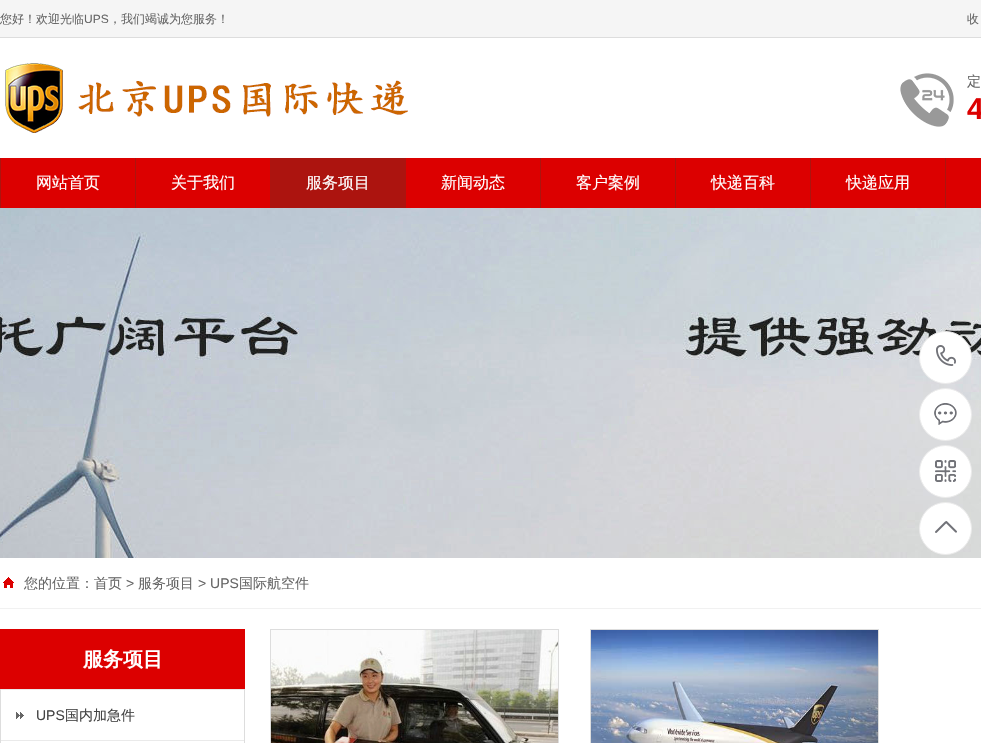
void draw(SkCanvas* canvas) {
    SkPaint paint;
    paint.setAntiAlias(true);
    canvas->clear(0xFFFFFFFF);
    paint.setColor(0xFFF5F5F5);
    canvas->drawRect(SkRect::MakeXYWH(0, 0, 981, 37), paint);
    paint.setColor(0xFFDDDDDD);
    canvas->drawRect(SkRect::MakeXYWH(0, 37, 981, 1), paint);
    SkFont font1(fontMgr->matchFamilyStyle("WenQuanYi Zen Hei", SkFontStyle(500, SkFontStyle::kNormal_Width, SkFontStyle::kUpright_Slant)), 12);
    font1.setSubpixel(true);
    paint.setColor(0xFF666666);
    canvas->drawString("您好！欢迎光临", 0, 23, font1, paint);
    SkFont font2(fontMgr->matchFamilyStyle("Liberation Sans", SkFontStyle::Normal()), 12);
    font2.setSubpixel(true);
    canvas->drawString("UPS", 84, 23, font2, paint);
    canvas->drawString("，我们竭诚为您服务！", 109, 23, font1, paint);
    canvas->drawString("收", 967, 23, font1, paint);
    canvas->drawImageRect(SkImages::DeferredFromEncodedData(SkData::MakeFromFileName("img1.png")), SkRect::MakeXYWH(0, 58, 485, 80), SkSamplingOptions());
    canvas->drawImageRect(SkImages::DeferredFromEncodedData(SkData::MakeFromFileName("img2.png")), SkRect::MakeXYWH(900, 73, 54, 54), SkSamplingOptions());
    SkFont font3(fontMgr->matchFamilyStyle("WenQuanYi Zen Hei", SkFontStyle(500, SkFontStyle::kNormal_Width, SkFontStyle::kUpright_Slant)), 14);
    font3.setSubpixel(true);
    canvas->drawString("定", 967, 86, font3, paint);
    SkFont font4(fontMgr->matchFamilyStyle("Liberation Sans", SkFontStyle::Bold()), 30);
    font4.setSubpixel(true);
    paint.setColor(0xFFDC0000);
    canvas->drawString("4", 967, 119, font4, paint);
    canvas->drawRect(SkRect::MakeXYWH(1, 158, 980, 50), paint);
    paint.setColor(0xFFAC140F);
    canvas->drawRect(SkRect::MakeXYWH(135, 158, 1, 50), paint);
    canvas->drawRect(SkRect::MakeXYWH(0, 158, 1, 50), paint);
    SkFont font5(fontMgr->matchFamilyStyle("WenQuanYi Zen Hei", SkFontStyle(500, SkFontStyle::kNormal_Width, SkFontStyle::kUpright_Slant)), 16);
    font5.setSubpixel(true);
    paint.setColor(0xFFFFFFFF);
    canvas->drawString("网站首页", 36, 188, font5, paint);
    paint.setColor(0xFFAC140F);
    canvas->drawRect(SkRect::MakeXYWH(270, 158, 1, 50), paint);
    paint.setColor(0xFFFFFFFF);
    canvas->drawString("关于我们", 171, 188, font5, paint);
    paint.setColor(0xFFAC140F);
    canvas->drawRect(SkRect::MakeXYWH(271, 158, 135, 50), paint);
    paint.setColor(0xFFFFFFFF);
    canvas->drawString("服务项目", 306, 188, font5, paint);
    paint.setColor(0xFFAC140F);
    canvas->drawRect(SkRect::MakeXYWH(540, 158, 1, 50), paint);
    paint.setColor(0xFFFFFFFF);
    canvas->drawString("新闻动态", 441, 188, font5, paint);
    paint.setColor(0xFFAC140F);
    canvas->drawRect(SkRect::MakeXYWH(675, 158, 1, 50), paint);
    paint.setColor(0xFFFFFFFF);
    canvas->drawString("客户案例", 576, 188, font5, paint);
    paint.setColor(0xFFAC140F);
    canvas->drawRect(SkRect::MakeXYWH(810, 158, 1, 50), paint);
    paint.setColor(0xFFFFFFFF);
    canvas->drawString("快递百科", 711, 188, font5, paint);
    paint.setColor(0xFFAC140F);
    canvas->drawRect(SkRect::MakeXYWH(945, 158, 1, 50), paint);
    paint.setColor(0xFFFFFFFF);
    canvas->drawString("快递应用", 846, 188, font5, paint);
    canvas->drawImageRect(SkImages::DeferredFromEncodedData(SkData::MakeFromFileName("img3.png")), SkRect::MakeXYWH(0, 208, 981, 350), SkSamplingOptions());
    canvas->drawCircle(945.5f, 357.5f, 26, paint);
    paint.setStyle(SkPaint::kStroke_Style);
    paint.setStrokeWidth(1);
    paint.setColor(0xFFEBEBEB);
    canvas->drawCircle(945.5f, 357.5f, 26, paint);
    canvas->drawImageRect(SkImages::DeferredFromEncodedData(SkData::MakeFromFileName("img4.png")), SkRect::MakeXYWH(936, 345, 20, 21), SkSamplingOptions());
    paint.setStyle(SkPaint::kFill_Style);
    paint.setColor(0xFFFFFFFF);
    canvas->drawCircle(945.5f, 414.5f, 26, paint);
    paint.setStyle(SkPaint::kStroke_Style);
    paint.setColor(0xFFEBEBEB);
    canvas->drawCircle(945.5f, 414.5f, 26, paint);
    canvas->drawImageRect(SkImages::DeferredFromEncodedData(SkData::MakeFromFileName("img5.png")), SkRect::MakeXYWH(934, 403, 23, 22), SkSamplingOptions());
    paint.setStyle(SkPaint::kFill_Style);
    paint.setColor(0xFFFFFFFF);
    canvas->drawCircle(945.5f, 471.5f, 26, paint);
    paint.setStyle(SkPaint::kStroke_Style);
    paint.setColor(0xFFEBEBEB);
    canvas->drawCircle(945.5f, 471.5f, 26, paint);
    canvas->drawImageRect(SkImages::DeferredFromEncodedData(SkData::MakeFromFileName("img6.png")), SkRect::MakeXYWH(935, 460, 21, 22), SkSamplingOptions());
    paint.setStyle(SkPaint::kFill_Style);
    paint.setColor(0xFFFFFFFF);
    canvas->drawCircle(945.5f, 528.5f, 26, paint);
    paint.setStyle(SkPaint::kStroke_Style);
    paint.setColor(0xFFEBEBEB);
    canvas->drawCircle(945.5f, 528.5f, 26, paint);
    canvas->drawImageRect(SkImages::DeferredFromEncodedData(SkData::MakeFromFileName("img7.png")), SkRect::MakeXYWH(935, 521, 22, 12), SkSamplingOptions());
    paint.setStyle(SkPaint::kFill_Style);
    paint.setColor(0xFFF1F1F1);
    canvas->drawRect(SkRect::MakeXYWH(0, 608, 981, 1), paint);
    canvas->drawImageRect(SkImages::DeferredFromEncodedData(SkData::MakeFromFileName("img8.png")), SkRect::MakeXYWH(3, 577, 11, 11), SkSamplingOptions());
    paint.setColor(0xFF666666);
    canvas->drawString("您的位置：首页", 24, 588, font3, paint);
    SkFont font6(fontMgr->matchFamilyStyle("Liberation Sans", SkFontStyle::Normal()), 14);
    font6.setSubpixel(true);
    canvas->drawString(">", 126, 588, font6, paint);
    canvas->drawString("服务项目", 138, 588, font3, paint);
    canvas->drawString("> UPS", 198, 588, font6, paint);
    canvas->drawString("国际航空件", 239, 588, font3, paint);
    paint.setColor(0xFFDC0000);
    canvas->drawRect(SkRect::MakeXYWH(0, 629, 245, 60), paint);
    SkFont font7(fontMgr->matchFamilyStyle("WenQuanYi Zen Hei", SkFontStyle::Bold()), 20);
    font7.setSubpixel(true);
    paint.setColor(0xFFFFFFFF);
    canvas->drawString("服务项目", 83, 666, font7, paint);
    paint.setColor(0xFFDDDDDD);
    canvas->drawRect(SkRect::MakeXYWH(244, 689, 1, 54), paint);
    canvas->drawRect(SkRect::MakeXYWH(0, 689, 1, 54), paint);
    canvas->drawImageRect(SkImages::DeferredFromEncodedData(SkData::MakeFromFileName("img9.png")), SkRect::MakeXYWH(16, 712, 8, 7), SkSamplingOptions());
    paint.setColor(0xFFEAEAEA);
    canvas->drawRect(SkRect::MakeXYWH(1, 689, 243, 1), paint);
    paint.setColor(0xFF434343);
    canvas->drawString("UPS", 36, 720, font6, paint);
    canvas->drawString("国内加急件", 65, 720, font3, paint);
    paint.setColor(0xFFEAEAEA);
    canvas->drawRect(SkRect::MakeXYWH(1, 740, 243, 1), paint);
    paint.setStyle(SkPaint::kStroke_Style);
    paint.setColor(0xFFDDDDDD);
    canvas->drawRect(SkRect::MakeXYWH(270.5f, 629.5f, 288, 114), paint);
    canvas->drawImageRect(SkImages::DeferredFromEncodedData(SkData::MakeFromFileName("img10.png")), SkRect::MakeXYWH(271, 630, 287, 113), SkSamplingOptions());
    canvas->drawRect(SkRect::MakeXYWH(590.5f, 629.5f, 288, 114), paint);
    canvas->drawImageRect(SkImages::DeferredFromEncodedData(SkData::MakeFromFileName("img11.png")), SkRect::MakeXYWH(591, 630, 287, 113), SkSamplingOptions());
}
